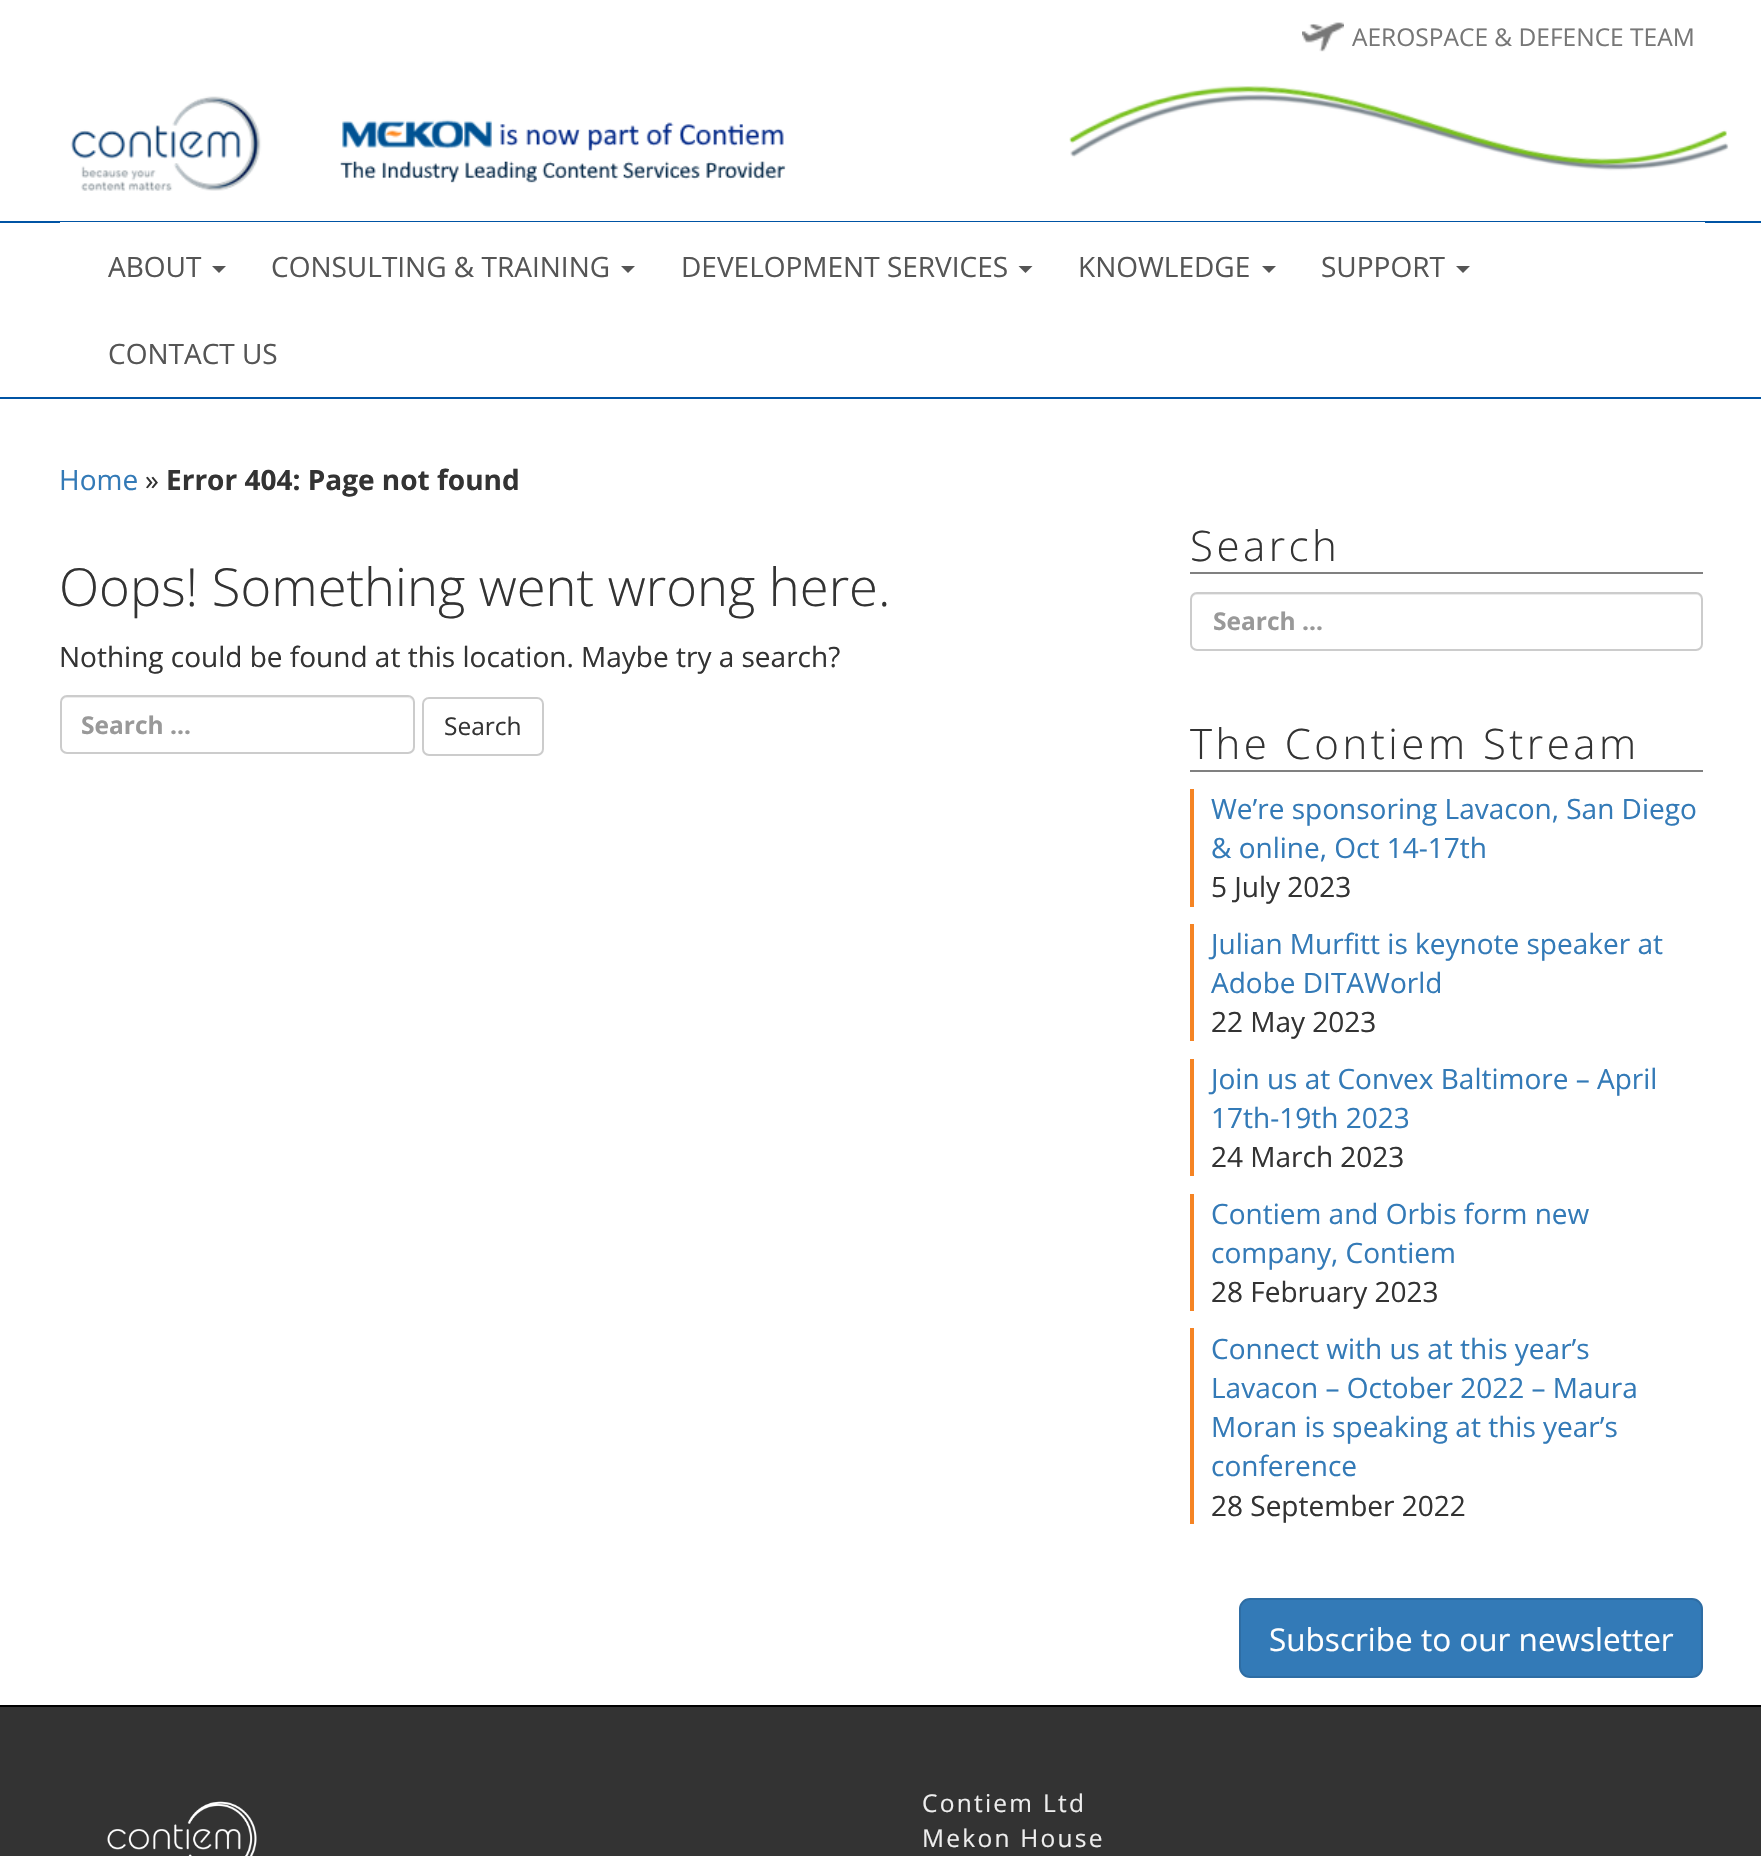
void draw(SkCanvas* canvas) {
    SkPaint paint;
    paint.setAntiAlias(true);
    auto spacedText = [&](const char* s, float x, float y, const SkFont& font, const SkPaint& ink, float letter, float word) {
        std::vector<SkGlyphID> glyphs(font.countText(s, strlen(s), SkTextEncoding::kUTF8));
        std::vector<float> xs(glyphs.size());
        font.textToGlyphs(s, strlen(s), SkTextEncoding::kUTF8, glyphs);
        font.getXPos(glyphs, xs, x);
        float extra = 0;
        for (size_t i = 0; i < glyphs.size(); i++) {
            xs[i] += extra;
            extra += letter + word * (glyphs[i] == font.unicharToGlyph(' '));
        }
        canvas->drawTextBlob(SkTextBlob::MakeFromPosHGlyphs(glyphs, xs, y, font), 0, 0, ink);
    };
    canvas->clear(0xFFFFFFFF);
    canvas->drawImageRect(SkImages::DeferredFromEncodedData(SkData::MakeFromFileName("img1.png")), SkRect::MakeXYWH(1302, 22, 42, 30), SkSamplingOptions());
    SkFont font1(fontMgr->matchFamilyStyle("Open Sans", SkFontStyle::Normal()), 24.5f);
    font1.setSubpixel(true);
    paint.setColor(0xFF777777);
    canvas->drawString("AEROSPACE & DEFENCE TEAM", 1352, 46, font1, paint);
    canvas->drawImageRect(SkImages::DeferredFromEncodedData(SkData::MakeFromFileName("img2.png")), SkRect::MakeXYWH(70, 85, 1659, 106), SkSamplingOptions());
    paint.setColor(0xFF0054A4);
    canvas->drawRect(SkRect::MakeXYWH(0, 221, 1761, 2), paint);
    canvas->drawRect(SkRect::MakeXYWH(0, 397, 1761, 2), paint);
    paint.setColor(0xFFFFFFFF);
    canvas->drawRect(SkRect::MakeXYWH(60, 222, 1645, 1), paint);
    SkFont font2(fontMgr->matchFamilyStyle("Open Sans", SkFontStyle::Normal()), 28);
    font2.setSubpixel(true);
    paint.setColor(0xFF555555);
    canvas->drawString("ABOUT", 108, 277, font2, paint);
    canvas->drawPath(SkPathBuilder().moveTo(212, 266).lineTo(226, 266).lineTo(219, 273).close().detach(), paint);
    canvas->drawString("CONSULTING & TRAINING", 271, 277, font2, paint);
    canvas->drawPath(SkPathBuilder().moveTo(621, 266).lineTo(635, 266).lineTo(628, 273).close().detach(), paint);
    canvas->drawString("DEVELOPMENT SERVICES", 681, 277, font2, paint);
    canvas->drawPath(SkPathBuilder().moveTo(1018.5f, 266).lineTo(1032.5f, 266).lineTo(1025.5f, 273).close().detach(), paint);
    canvas->drawString("KNOWLEDGE", 1078, 277, font2, paint);
    canvas->drawPath(SkPathBuilder().moveTo(1262, 266).lineTo(1276, 266).lineTo(1269, 273).close().detach(), paint);
    canvas->drawString("SUPPORT", 1321, 277, font2, paint);
    canvas->drawPath(SkPathBuilder().moveTo(1456, 266).lineTo(1470, 266).lineTo(1463, 273).close().detach(), paint);
    canvas->drawString("CONTACT US", 108, 364, font2, paint);
    paint.setColor(0xFF337AB7);
    canvas->drawString("Home", 59, 490, font2, paint);
    paint.setColor(0xFF333333);
    canvas->drawString("»", 145, 490, font2, paint);
    SkFont font3(fontMgr->matchFamilyStyle("Open Sans", SkFontStyle::Bold()), 28);
    font3.setSubpixel(true);
    canvas->drawString("Error 404: Page not found", 166, 490, font3, paint);
    SkFont font4(fontMgr->matchFamilyStyle("Open Sans", SkFontStyle(300, SkFontStyle::kNormal_Width, SkFontStyle::kUpright_Slant)), 52.5f);
    font4.setSubpixel(true);
    canvas->drawString("Oops! Something went wrong here.", 59, 606, font4, paint);
    canvas->drawString("Nothing could be found at this location. Maybe try a search?", 59, 667, font2, paint);
    paint.setColor(0xFFECECEC);
    canvas->drawPath(SkPathBuilder().moveTo(66, 698).lineTo(408, 698).cubicTo(411, 698, 413, 701, 413, 704).cubicTo(413, 701, 412, 697, 408, 697).lineTo(66, 697).cubicTo(62, 697, 61, 701, 61, 704).cubicTo(61, 701, 64, 698, 66, 698).close().detach(), paint);
    paint.setStyle(SkPaint::kStroke_Style);
    paint.setStrokeWidth(2);
    paint.setColor(0xFFCCCCCC);
    canvas->drawRoundRect(SkRect::MakeXYWH(61, 696, 353, 57), 6, 6, paint);
    SkFont font5(fontMgr->matchFamilyStyle("Open Sans", SkFontStyle::Bold()), 24.5f);
    font5.setSubpixel(true);
    paint.setStyle(SkPaint::kFill_Style);
    paint.setColor(0xFF999999);
    canvas->drawString("Search …", 81, 734, font5, paint);
    paint.setStyle(SkPaint::kStroke_Style);
    paint.setColor(0xFFCCCCCC);
    canvas->drawRoundRect(SkRect::MakeXYWH(423, 698, 120, 57), 6, 6, paint);
    paint.setStyle(SkPaint::kFill_Style);
    paint.setColor(0xFF333333);
    canvas->drawString("Search", 444, 735, font1, paint);
    paint.setColor(0xFF808080);
    canvas->drawRect(SkRect::MakeXYWH(1190, 572, 513, 2), paint);
    SkFont font6(fontMgr->matchFamilyStyle("Open Sans", SkFontStyle(300, SkFontStyle::kNormal_Width, SkFontStyle::kUpright_Slant)), 42);
    font6.setSubpixel(true);
    paint.setColor(0xFF333333);
    spacedText("Search", 1190, 561, font6, paint, 3.5f, 0);
    paint.setColor(0xFFECECEC);
    canvas->drawPath(SkPathBuilder().moveTo(1197, 595).lineTo(1696, 595).cubicTo(1699, 595, 1701, 597, 1701, 600).lineTo(1701, 598).cubicTo(1701, 595, 1699, 593, 1696, 593).lineTo(1197, 593).cubicTo(1194, 593, 1192, 595, 1192, 598).lineTo(1192, 600).cubicTo(1192, 597, 1194, 595, 1197, 595).close().detach(), paint);
    paint.setStyle(SkPaint::kStroke_Style);
    paint.setColor(0xFFCCCCCC);
    canvas->drawRoundRect(SkRect::MakeXYWH(1191, 593, 511, 57), 6, 6, paint);
    paint.setStyle(SkPaint::kFill_Style);
    paint.setColor(0xFF999999);
    canvas->drawString("Search …", 1213, 630, font5, paint);
    paint.setColor(0xFF808080);
    canvas->drawRect(SkRect::MakeXYWH(1190, 770, 513, 2), paint);
    paint.setColor(0xFF333333);
    spacedText("The Contiem Stream", 1190, 759, font6, paint, 3.5f, 0);
    paint.setColor(0xFFF58424);
    canvas->drawRect(SkRect::MakeXYWH(1190, 789, 4, 118), paint);
    paint.setColor(0xFF337AB7);
    canvas->drawString("We’re sponsoring Lavacon, San Diego", 1211, 819, font2, paint);
    canvas->drawString("& online, Oct 14-17th", 1211, 858, font2, paint);
    paint.setColor(0xFF333333);
    canvas->drawString("5 July 2023", 1211, 897, font2, paint);
    paint.setColor(0xFFF58424);
    canvas->drawRect(SkRect::MakeXYWH(1190, 924, 4, 117), paint);
    paint.setColor(0xFF337AB7);
    canvas->drawString("Julian Murfitt is keynote speaker at", 1211, 954, font2, paint);
    canvas->drawString("Adobe DITAWorld", 1211, 993, font2, paint);
    paint.setColor(0xFF333333);
    canvas->drawString("22 May 2023", 1211, 1032, font2, paint);
    paint.setColor(0xFFF58424);
    canvas->drawRect(SkRect::MakeXYWH(1190, 1059, 4, 117), paint);
    paint.setColor(0xFF337AB7);
    canvas->drawString("Join us at Convex Baltimore – April", 1211, 1089, font2, paint);
    canvas->drawString("17th-19th 2023", 1211, 1128, font2, paint);
    paint.setColor(0xFF333333);
    canvas->drawString("24 March 2023", 1211, 1167, font2, paint);
    paint.setColor(0xFFF58424);
    canvas->drawRect(SkRect::MakeXYWH(1190, 1194, 4, 117), paint);
    paint.setColor(0xFF337AB7);
    canvas->drawString("Contiem and Orbis form new", 1211, 1224, font2, paint);
    canvas->drawString("company, Contiem", 1211, 1263, font2, paint);
    paint.setColor(0xFF333333);
    canvas->drawString("28 February 2023", 1211, 1302, font2, paint);
    paint.setColor(0xFFF58424);
    canvas->drawRect(SkRect::MakeXYWH(1190, 1328, 4, 196), paint);
    paint.setColor(0xFF337AB7);
    canvas->drawString("Connect with us at this year’s", 1211, 1359, font2, paint);
    canvas->drawString("Lavacon – October 2022 – Maura", 1211, 1398, font2, paint);
    canvas->drawString("Moran is speaking at this year’s", 1211, 1437, font2, paint);
    canvas->drawString("conference", 1211, 1476, font2, paint);
    paint.setColor(0xFF333333);
    canvas->drawString("28 September 2022", 1211, 1516, font2, paint);
    paint.setColor(0xFF337AB7);
    canvas->drawRoundRect(SkRect::MakeXYWH(1240, 1599, 462, 78), 10, 10, paint);
    paint.setStyle(SkPaint::kStroke_Style);
    paint.setColor(0xFF2E6DA4);
    canvas->drawRoundRect(SkRect::MakeXYWH(1240, 1599, 462, 78), 10, 10, paint);
    SkFont font7(fontMgr->matchFamilyStyle("Open Sans", SkFontStyle::Normal()), 31.5f);
    font7.setSubpixel(true);
    paint.setStyle(SkPaint::kFill_Style);
    paint.setColor(0xFFFFFFFF);
    canvas->drawString("Subscribe to our newsletter", 1269, 1651, font7, paint);
    paint.setColor(0xFF333333);
    canvas->drawRect(SkRect::MakeXYWH(0, 1707, 1761, 149), paint);
    paint.setColor(0xFF000000);
    canvas->drawRect(SkRect::MakeXYWH(0, 1705, 1761, 2), paint);
    canvas->drawImageRect(SkImages::DeferredFromEncodedData(SkData::MakeFromFileName("img3.png")), SkRect::MakeXYWH(107, 1801, 150, 55), SkSamplingOptions());
    paint.setColor(0xFFEEEEEE);
    spacedText("Contiem Ltd", 922, 1812, font1, paint, 2.25f, 0);
    spacedText("Mekon House", 922, 1847, font1, paint, 2.25f, 0);
}
